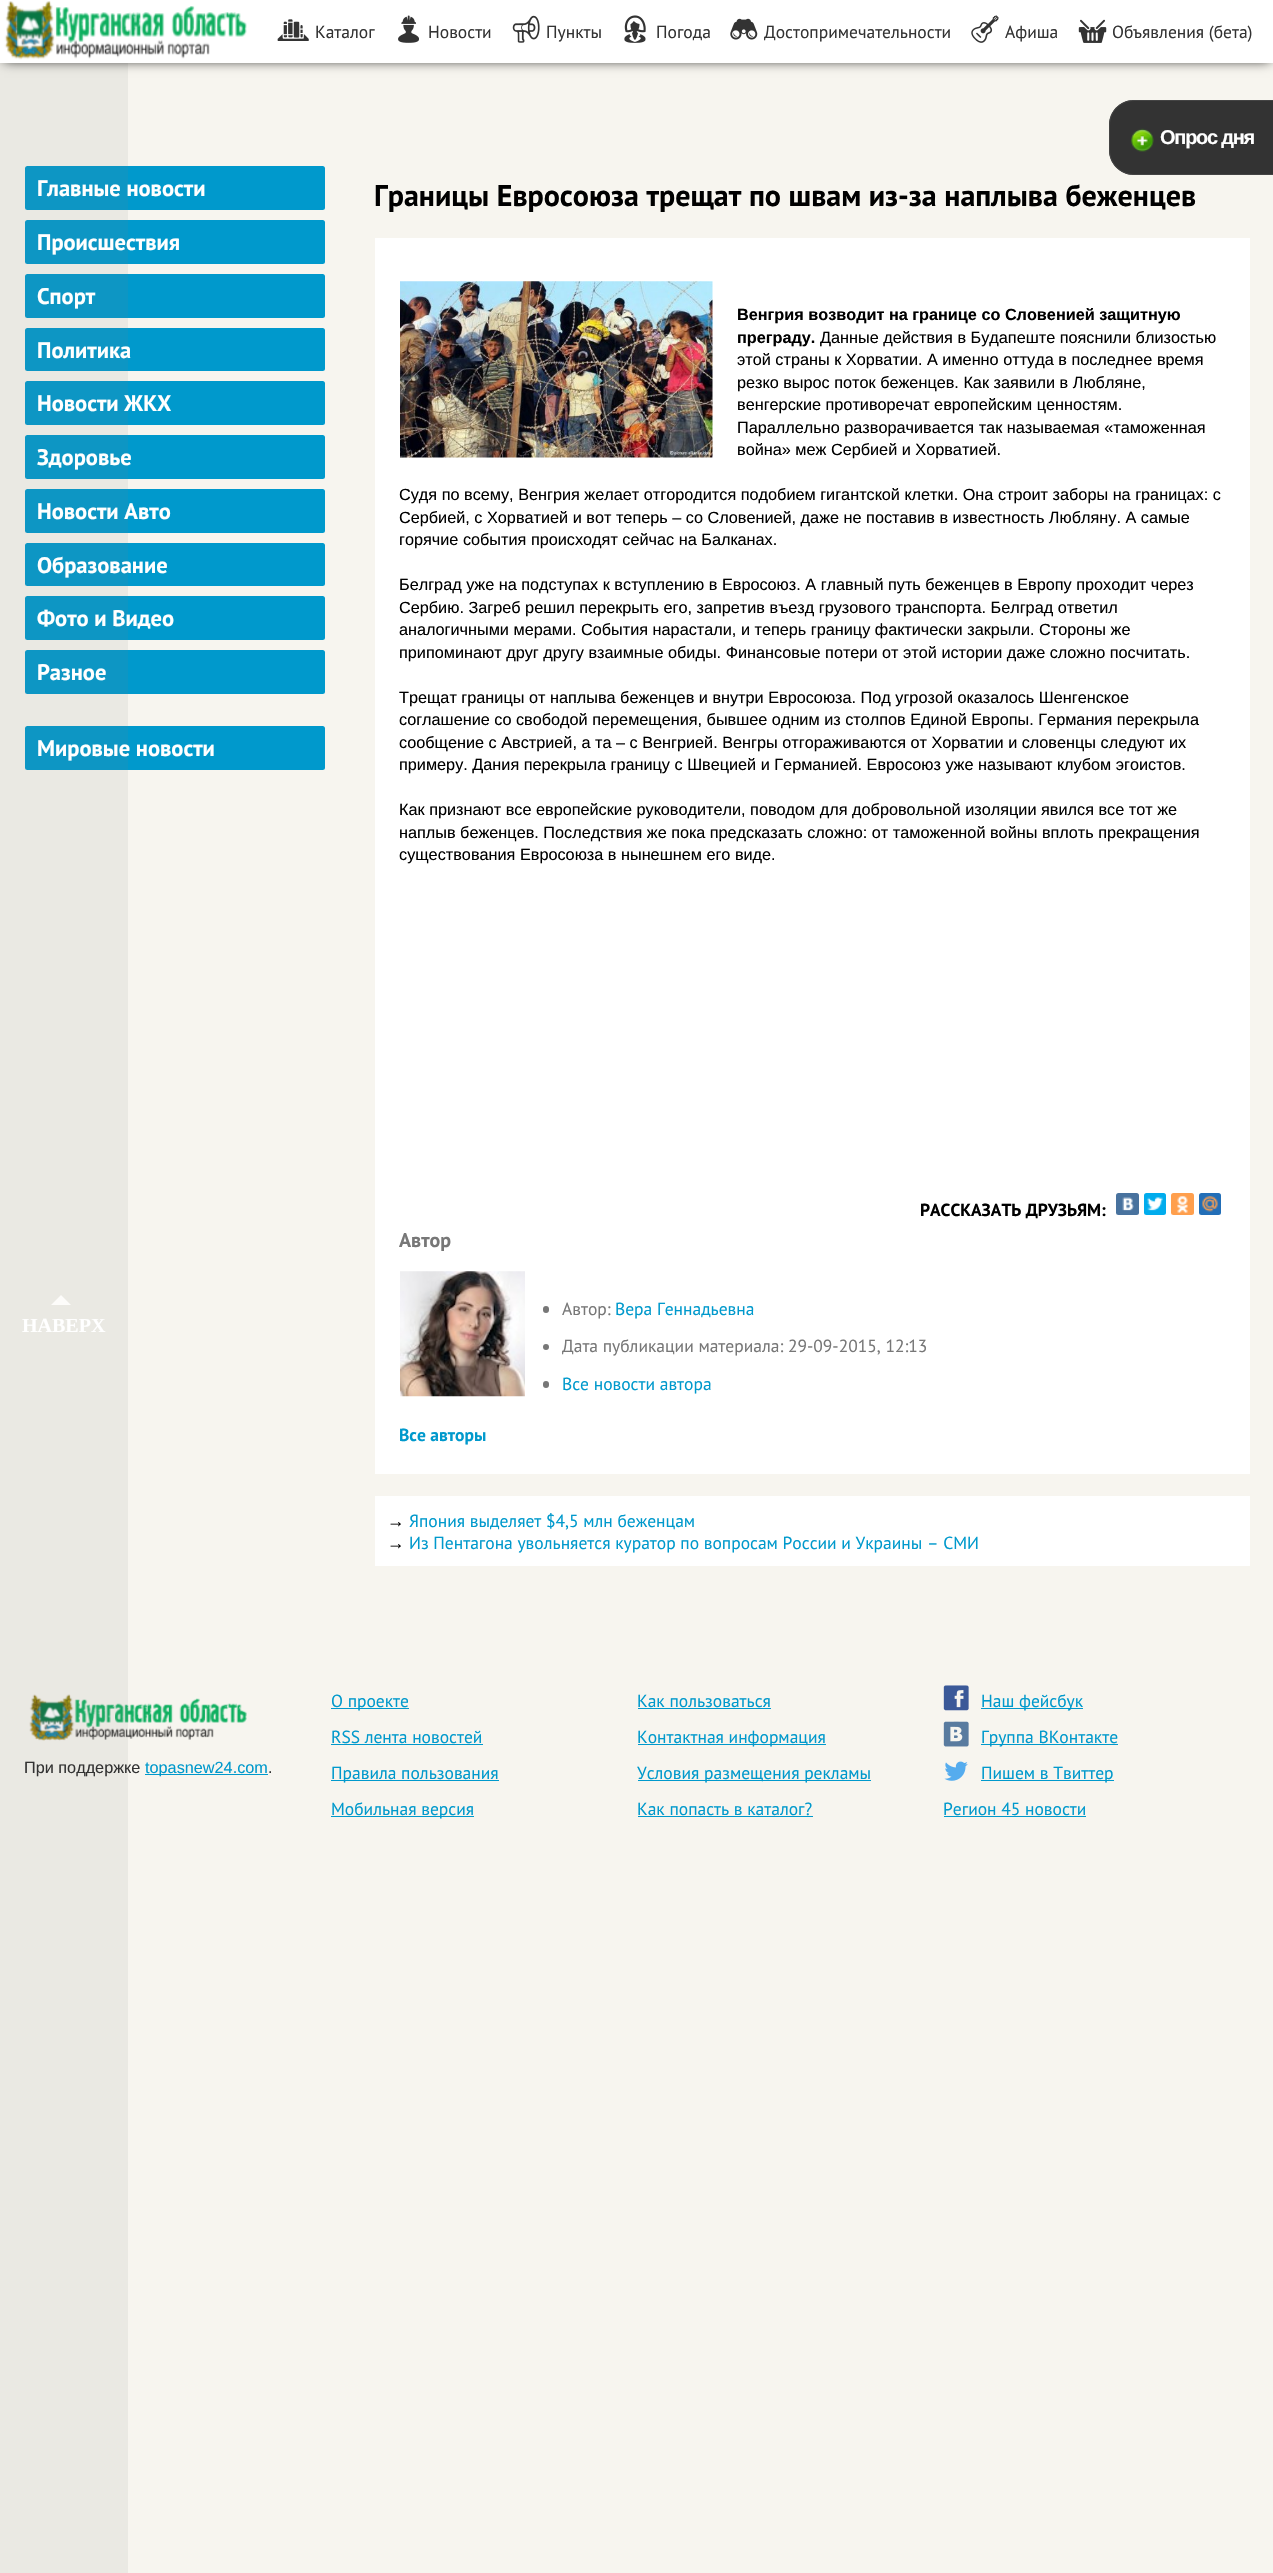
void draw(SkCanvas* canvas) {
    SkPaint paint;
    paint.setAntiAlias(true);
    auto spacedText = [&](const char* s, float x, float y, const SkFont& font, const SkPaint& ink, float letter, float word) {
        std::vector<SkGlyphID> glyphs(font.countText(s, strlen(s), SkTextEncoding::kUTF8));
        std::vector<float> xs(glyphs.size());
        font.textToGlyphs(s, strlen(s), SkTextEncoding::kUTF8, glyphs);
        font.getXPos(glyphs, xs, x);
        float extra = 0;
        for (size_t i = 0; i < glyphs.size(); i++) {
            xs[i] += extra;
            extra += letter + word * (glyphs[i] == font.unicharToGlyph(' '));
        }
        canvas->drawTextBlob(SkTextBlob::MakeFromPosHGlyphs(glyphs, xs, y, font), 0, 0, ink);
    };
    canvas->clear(0xFFF7F5EF);
    paint.setColor(0xFF0099CC);
    canvas->drawRoundRect(SkRect::MakeXYWH(25, 166, 300, 44), 2.5f, 2.5f, paint);
    canvas->drawRoundRect(SkRect::MakeXYWH(25, 220, 300, 44), 2.5f, 2.5f, paint);
    canvas->drawRoundRect(SkRect::MakeXYWH(25, 274, 300, 44), 2.5f, 2.5f, paint);
    canvas->drawRoundRect(SkRect::MakeXYWH(25, 328, 300, 43), 2.5f, 2.5f, paint);
    canvas->drawRoundRect(SkRect::MakeXYWH(25, 381, 300, 44), 2.5f, 2.5f, paint);
    canvas->drawRoundRect(SkRect::MakeXYWH(25, 435, 300, 44), 2.5f, 2.5f, paint);
    canvas->drawRoundRect(SkRect::MakeXYWH(25, 489, 300, 44), 2.5f, 2.5f, paint);
    canvas->drawRoundRect(SkRect::MakeXYWH(25, 543, 300, 43), 2.5f, 2.5f, paint);
    canvas->drawRoundRect(SkRect::MakeXYWH(25, 596, 300, 44), 2.5f, 2.5f, paint);
    canvas->drawRoundRect(SkRect::MakeXYWH(25, 650, 300, 44), 2.5f, 2.5f, paint);
    canvas->drawRoundRect(SkRect::MakeXYWH(25, 726, 300, 44), 2.5f, 2.5f, paint);
    canvas->drawImageRect(SkImages::DeferredFromEncodedData(SkData::MakeFromFileName("img16.png")), SkRect::MakeXYWH(29, 1694, 218, 47), SkSamplingOptions());
    paint.setColor(0x1A808080);
    canvas->drawRect(SkRect::MakeXYWH(0, 63, 128, 2510), paint);
    paint.setColor(0xFF000000);
    paint.setMaskFilter(SkMaskFilter::MakeBlur(kNormal_SkBlurStyle, 6));
    canvas->drawRect(SkRect::MakeXYWH(4, 5, 1266, 55), paint);
    paint.setMaskFilter(nullptr);
    paint.setColor(0xFFFFFFFF);
    canvas->drawRect(SkRect::MakeXYWH(0, 0, 1273, 63), paint);
    canvas->drawImageRect(SkImages::DeferredFromEncodedData(SkData::MakeFromFileName("img1.png")), SkRect::MakeXYWH(4, 1, 243, 59), SkSamplingOptions());
    canvas->drawImageRect(SkImages::DeferredFromEncodedData(SkData::MakeFromFileName("img2.png")), SkRect::MakeXYWH(277, 19, 32, 22), SkSamplingOptions());
    SkFont font1(fontMgr->matchFamilyStyle("PT Sans", SkFontStyle::Normal()), 17.5f);
    font1.setSubpixel(true);
    paint.setColor(0xFF333333);
    canvas->drawString("Каталог", 315, 38, font1, paint);
    canvas->drawImageRect(SkImages::DeferredFromEncodedData(SkData::MakeFromFileName("img3.png")), SkRect::MakeXYWH(398, 15, 21, 28), SkSamplingOptions());
    canvas->drawString("Новости", 428, 38, font1, paint);
    canvas->drawImageRect(SkImages::DeferredFromEncodedData(SkData::MakeFromFileName("img4.png")), SkRect::MakeXYWH(512, 15, 28, 28), SkSamplingOptions());
    canvas->drawString("Пункты", 546, 38, font1, paint);
    canvas->drawImageRect(SkImages::DeferredFromEncodedData(SkData::MakeFromFileName("img5.png")), SkRect::MakeXYWH(624, 15, 22, 28), SkSamplingOptions());
    canvas->drawString("Погода", 656, 38, font1, paint);
    canvas->drawImageRect(SkImages::DeferredFromEncodedData(SkData::MakeFromFileName("img6.png")), SkRect::MakeXYWH(730, 18, 28, 22), SkSamplingOptions());
    canvas->drawString("Достопримечательности", 764, 38, font1, paint);
    canvas->drawImageRect(SkImages::DeferredFromEncodedData(SkData::MakeFromFileName("img7.png")), SkRect::MakeXYWH(971, 15, 28, 28), SkSamplingOptions());
    canvas->drawString("Афиша", 1005, 38, font1, paint);
    canvas->drawImageRect(SkImages::DeferredFromEncodedData(SkData::MakeFromFileName("img8.png")), SkRect::MakeXYWH(1078, 19, 29, 24), SkSamplingOptions());
    canvas->drawString("Объявления (бета)", 1112, 38, font1, paint);
    canvas->drawPath(SkPathBuilder().moveTo(1134, 100).lineTo(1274, 100).lineTo(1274, 175).lineTo(1134, 175).cubicTo(1120, 175, 1109, 164, 1109, 150).lineTo(1109, 125).cubicTo(1109, 111, 1120, 100, 1134, 100).close().detach(), paint);
    canvas->drawImageRect(SkImages::DeferredFromEncodedData(SkData::MakeFromFileName("img9.png")), SkRect::MakeXYWH(1131, 128, 23, 24), SkSamplingOptions());
    paint.setStyle(SkPaint::kStroke_Style);
    paint.setStrokeWidth(1);
    paint.setColor(0xFF444444);
    canvas->drawPath(SkPathBuilder().moveTo(1134, 100.5f).lineTo(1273.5f, 100.5f).lineTo(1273.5f, 174.5f).lineTo(1134, 174.5f).cubicTo(1120.5f, 174.5f, 1109.5f, 163.5f, 1109.5f, 150).lineTo(1109.5f, 125).cubicTo(1109.5f, 111.5f, 1120.5f, 100.5f, 1134, 100.5f).close().detach(), paint);
    SkFont font2(fontMgr->matchFamilyStyle("Liberation Sans", SkFontStyle::Bold()), 20);
    font2.setSubpixel(true);
    paint.setStyle(SkPaint::kFill_Style);
    paint.setColor(0xFFFFFFFF);
    spacedText("Опрос дня", 1160, 144, font2, paint, -1.25f, 0);
    SkFont font3(fontMgr->matchFamilyStyle("PT Sans", SkFontStyle::Bold()), 22.5f);
    font3.setSubpixel(true);
    canvas->drawString("Главные новости", 37, 196, font3, paint);
    canvas->drawString("Происшествия", 37, 250, font3, paint);
    canvas->drawString("Спорт", 37, 304, font3, paint);
    canvas->drawString("Политика", 37, 358, font3, paint);
    canvas->drawString("Новости ЖКХ", 37, 411, font3, paint);
    canvas->drawString("Здоровье", 37, 465, font3, paint);
    canvas->drawString("Новости Авто", 37, 519, font3, paint);
    canvas->drawString("Образование", 37, 573, font3, paint);
    canvas->drawString("Фото и Видео", 37, 626, font3, paint);
    canvas->drawString("Разное", 37, 680, font3, paint);
    canvas->drawString("Мировые новости", 37, 756, font3, paint);
    SkFont font4(fontMgr->matchFamilyStyle("PT Sans", SkFontStyle::Bold()), 30);
    font4.setSubpixel(true);
    paint.setColor(0xFF000000);
    canvas->drawString("Границы Евросоюза трещат по швам из-за наплыва беженцев", 374, 206, font4, paint);
    paint.setColor(0xFFFFFFFF);
    canvas->drawRect(SkRect::MakeXYWH(375, 238, 875, 1236), paint);
    canvas->drawImageRect(SkImages::DeferredFromEncodedData(SkData::MakeFromFileName("img10.png")), SkRect::MakeXYWH(400, 281, 313, 177), SkSamplingOptions());
    SkFont font5(fontMgr->matchFamilyStyle("Liberation Sans", SkFontStyle::Bold()), 16.25f);
    font5.setSubpixel(true);
    paint.setColor(0xFF000000);
    canvas->drawString("Венгрия возводит на границе со Словенией защитную", 737, 320, font5, paint);
    canvas->drawString("преграду.", 737, 343, font5, paint);
    SkFont font6(fontMgr->matchFamilyStyle("Liberation Sans", SkFontStyle::Normal()), 16.25f);
    font6.setSubpixel(true);
    canvas->drawString("Данные действия в Будапеште пояснили близостью", 820, 343, font6, paint);
    canvas->drawString("этой страны к Хорватии. А именно оттуда в последнее время", 737, 365, font6, paint);
    canvas->drawString("резко вырос поток беженцев. Как заявили в Любляне,", 737, 388, font6, paint);
    canvas->drawString("венгерские противоречат европейским ценностям.", 737, 410, font6, paint);
    canvas->drawString("Параллельно разворачивается так называемая «таможенная", 737, 433, font6, paint);
    canvas->drawString("война» меж Сербией и Хорватией.", 737, 455, font6, paint);
    canvas->drawString("Судя по всему, Венгрия желает отгородится подобием гигантской клетки. Она строит заборы на границах: с", 399, 500, font6, paint);
    canvas->drawString("Сербией, с Хорватией и вот теперь – со Словенией, даже не поставив в известность Любляну. А самые", 399, 523, font6, paint);
    canvas->drawString("горячие события происходят сейчас на Балканах.", 399, 545, font6, paint);
    canvas->drawString("Белград уже на подступах к вступлению в Евросоюз. А главный путь беженцев в Европу проходит через", 399, 590, font6, paint);
    canvas->drawString("Сербию. Загреб решил перекрыть его, запретив въезд грузового транспорта. Белград ответил", 399, 613, font6, paint);
    canvas->drawString("аналогичными мерами. События нарастали, и теперь границу фактически закрыли. Стороны же", 399, 635, font6, paint);
    canvas->drawString("припоминают друг другу взаимные обиды. Финансовые потери от этой истории даже сложно посчитать.", 399, 658, font6, paint);
    canvas->drawString("Трещат границы от наплыва беженцев и внутри Евросоюза. Под угрозой оказалось Шенгенское", 399, 703, font6, paint);
    canvas->drawString("соглашение со свободой перемещения, бывшее одним из столпов Единой Европы. Германия перекрыла", 399, 725, font6, paint);
    canvas->drawString("сообщение с Австрией, а та – с Венгрией. Венгры отгораживаются от Хорватии и словенцы следуют их", 399, 748, font6, paint);
    canvas->drawString("примеру. Дания перекрыла границу с Швецией и Германией. Евросоюз уже называют клубом эгоистов.", 399, 770, font6, paint);
    canvas->drawString("Как признают все европейские руководители, поводом для добровольной изоляции явился все тот же", 399, 815, font6, paint);
    canvas->drawString("наплыв беженцев. Последствия же пока предсказать сложно: от таможенной войны вплоть прекращения", 399, 838, font6, paint);
    canvas->drawString("существования Евросоюза в нынешнем его виде.", 399, 860, font6, paint);
    SkFont font7(fontMgr->matchFamilyStyle("PT Sans", SkFontStyle::Bold()), 17.5f);
    font7.setSubpixel(true);
    canvas->drawString("РАССКАЗАТЬ ДРУЗЬЯМ:", 920, 1216, font7, paint);
    paint.setColor(0xFF48729E);
    canvas->drawRoundRect(SkRect::MakeXYWH(1116, 1193, 23, 22), 2.5f, 2.5f, paint);
    canvas->drawImageRect(SkImages::DeferredFromEncodedData(SkData::MakeFromFileName("img11.png")), SkRect::MakeXYWH(1122, 1197, 12, 14), SkSamplingOptions());
    paint.setColor(0xFF00ACED);
    canvas->drawRoundRect(SkRect::MakeXYWH(1144, 1193, 22, 22), 2.5f, 2.5f, paint);
    canvas->drawImageRect(SkImages::DeferredFromEncodedData(SkData::MakeFromFileName("img12.png")), SkRect::MakeXYWH(1147, 1197, 16, 14), SkSamplingOptions());
    paint.setColor(0xFFFF9F4D);
    canvas->drawRoundRect(SkRect::MakeXYWH(1171, 1193, 23, 22), 2.5f, 2.5f, paint);
    canvas->drawImageRect(SkImages::DeferredFromEncodedData(SkData::MakeFromFileName("img13.png")), SkRect::MakeXYWH(1177, 1196, 11, 17), SkSamplingOptions());
    paint.setColor(0xFF226EB7);
    canvas->drawRoundRect(SkRect::MakeXYWH(1199, 1193, 22, 22), 2.5f, 2.5f, paint);
    canvas->drawImageRect(SkImages::DeferredFromEncodedData(SkData::MakeFromFileName("img14.png")), SkRect::MakeXYWH(1202, 1196, 16, 16), SkSamplingOptions());
    SkFont font8(fontMgr->matchFamilyStyle("PT Sans", SkFontStyle::Bold()), 20);
    font8.setSubpixel(true);
    paint.setColor(0xFF777777);
    canvas->drawString("Автор", 399, 1247, font8, paint);
    canvas->drawImageRect(SkImages::DeferredFromEncodedData(SkData::MakeFromFileName("img15.png")), SkRect::MakeXYWH(400, 1271, 125, 126), SkSamplingOptions());
    canvas->drawRoundRect(SkRect::MakeXYWH(543, 1306, 6, 7), 3, 3, paint);
    canvas->drawString("Автор:", 562, 1315, font1, paint);
    paint.setColor(0xFF0099CC);
    canvas->drawString("Вера Геннадьевна", 615, 1315, font1, paint);
    paint.setColor(0xFF777777);
    canvas->drawCircle(546, 1347, 3, paint);
    canvas->drawString("Дата публикации материала: 29-09-2015, 12:13", 562, 1352, font1, paint);
    canvas->drawRoundRect(SkRect::MakeXYWH(543, 1381, 6, 7), 3, 3, paint);
    paint.setColor(0xFF0099CC);
    canvas->drawString("Все новости автора", 562, 1390, font1, paint);
    canvas->drawString("Все авторы", 399, 1441, font7, paint);
    paint.setColor(0xFFFFFFFF);
    canvas->drawRect(SkRect::MakeXYWH(375, 1496, 875, 70), paint);
    SkFont font9(fontMgr->matchFamilyStyle("Liberation Sans", SkFontStyle::Normal()), 17.5f);
    font9.setSubpixel(true);
    paint.setColor(0xFF000000);
    canvas->drawString("→", 387, 1527, font9, paint);
    paint.setColor(0xFF0099CC);
    canvas->drawString("Япония выделяет $4,5 млн беженцам", 409, 1527, font1, paint);
    paint.setColor(0xFF000000);
    canvas->drawString("→", 387, 1549, font9, paint);
    paint.setColor(0xFF0099CC);
    canvas->drawString("Из Пентагона увольняется куратор по вопросам России и Украины – СМИ", 409, 1549, font1, paint);
    paint.setColor(0xFFFDFCFA);
    canvas->drawPath(SkPathBuilder().moveTo(71, 1305).lineTo(51, 1305).lineTo(61, 1295).close().detach(), paint);
    SkFont font10(fontMgr->matchFamilyStyle("Liberation Serif", SkFontStyle::Bold()), 20);
    font10.setSubpixel(true);
    paint.setColor(0xFFFFFFFF);
    canvas->drawString("НАВЕРХ", 22, 1332, font10, paint);
    paint.setColor(0xFF333333);
    canvas->drawString("При поддержке", 24, 1773, font6, paint);
    paint.setColor(0xFF0099CC);
    canvas->drawRect(SkRect::MakeXYWH(145, 1774, 123, 1), paint);
    canvas->drawString("topasnew24.com", 145, 1773, font6, paint);
    paint.setColor(0xFF333333);
    canvas->drawString(".", 268, 1773, font6, paint);
    paint.setColor(0xFF0099CC);
    canvas->drawRect(SkRect::MakeXYWH(331, 1708, 78, 1), paint);
    canvas->drawString("О проекте", 331, 1707, font1, paint);
    canvas->drawString("RSS лента новостей", 331, 1743, font1, paint);
    canvas->drawRect(SkRect::MakeXYWH(331, 1744, 152, 1), paint);
    canvas->drawRect(SkRect::MakeXYWH(331, 1780, 168, 1), paint);
    canvas->drawString("Правила пользования", 331, 1779, font1, paint);
    canvas->drawRect(SkRect::MakeXYWH(331, 1816, 143, 1), paint);
    canvas->drawString("Мобильная версия", 331, 1815, font1, paint);
    canvas->drawString("Как пользоваться", 637, 1707, font1, paint);
    canvas->drawRect(SkRect::MakeXYWH(638, 1708, 133, 1), paint);
    canvas->drawRect(SkRect::MakeXYWH(638, 1744, 188, 1), paint);
    canvas->drawString("Контактная информация", 637, 1743, font1, paint);
    canvas->drawRect(SkRect::MakeXYWH(638, 1780, 233, 1), paint);
    canvas->drawString("Условия размещения рекламы", 637, 1779, font1, paint);
    canvas->drawString("Как попасть в каталог?", 637, 1815, font1, paint);
    canvas->drawRect(SkRect::MakeXYWH(638, 1816, 175, 1), paint);
    canvas->drawImageRect(SkImages::DeferredFromEncodedData(SkData::MakeFromFileName("img17.png")), SkRect::MakeXYWH(943, 1685, 26, 26), SkSamplingOptions());
    canvas->drawRect(SkRect::MakeXYWH(981, 1708, 102, 1), paint);
    canvas->drawString("Наш фейсбук", 981, 1707, font1, paint);
    canvas->drawImageRect(SkImages::DeferredFromEncodedData(SkData::MakeFromFileName("img18.png")), SkRect::MakeXYWH(943, 1721, 26, 26), SkSamplingOptions());
    canvas->drawRect(SkRect::MakeXYWH(981, 1744, 137, 1), paint);
    canvas->drawString("Группа ВКонтакте", 981, 1743, font1, paint);
    canvas->drawImageRect(SkImages::DeferredFromEncodedData(SkData::MakeFromFileName("img19.png")), SkRect::MakeXYWH(944, 1761, 24, 20), SkSamplingOptions());
    canvas->drawRect(SkRect::MakeXYWH(981, 1780, 133, 1), paint);
    canvas->drawString("Пишем в Твиттер", 981, 1779, font1, paint);
    canvas->drawString("Регион 45 новости", 943, 1815, font1, paint);
    canvas->drawRect(SkRect::MakeXYWH(944, 1816, 142, 1), paint);
}
